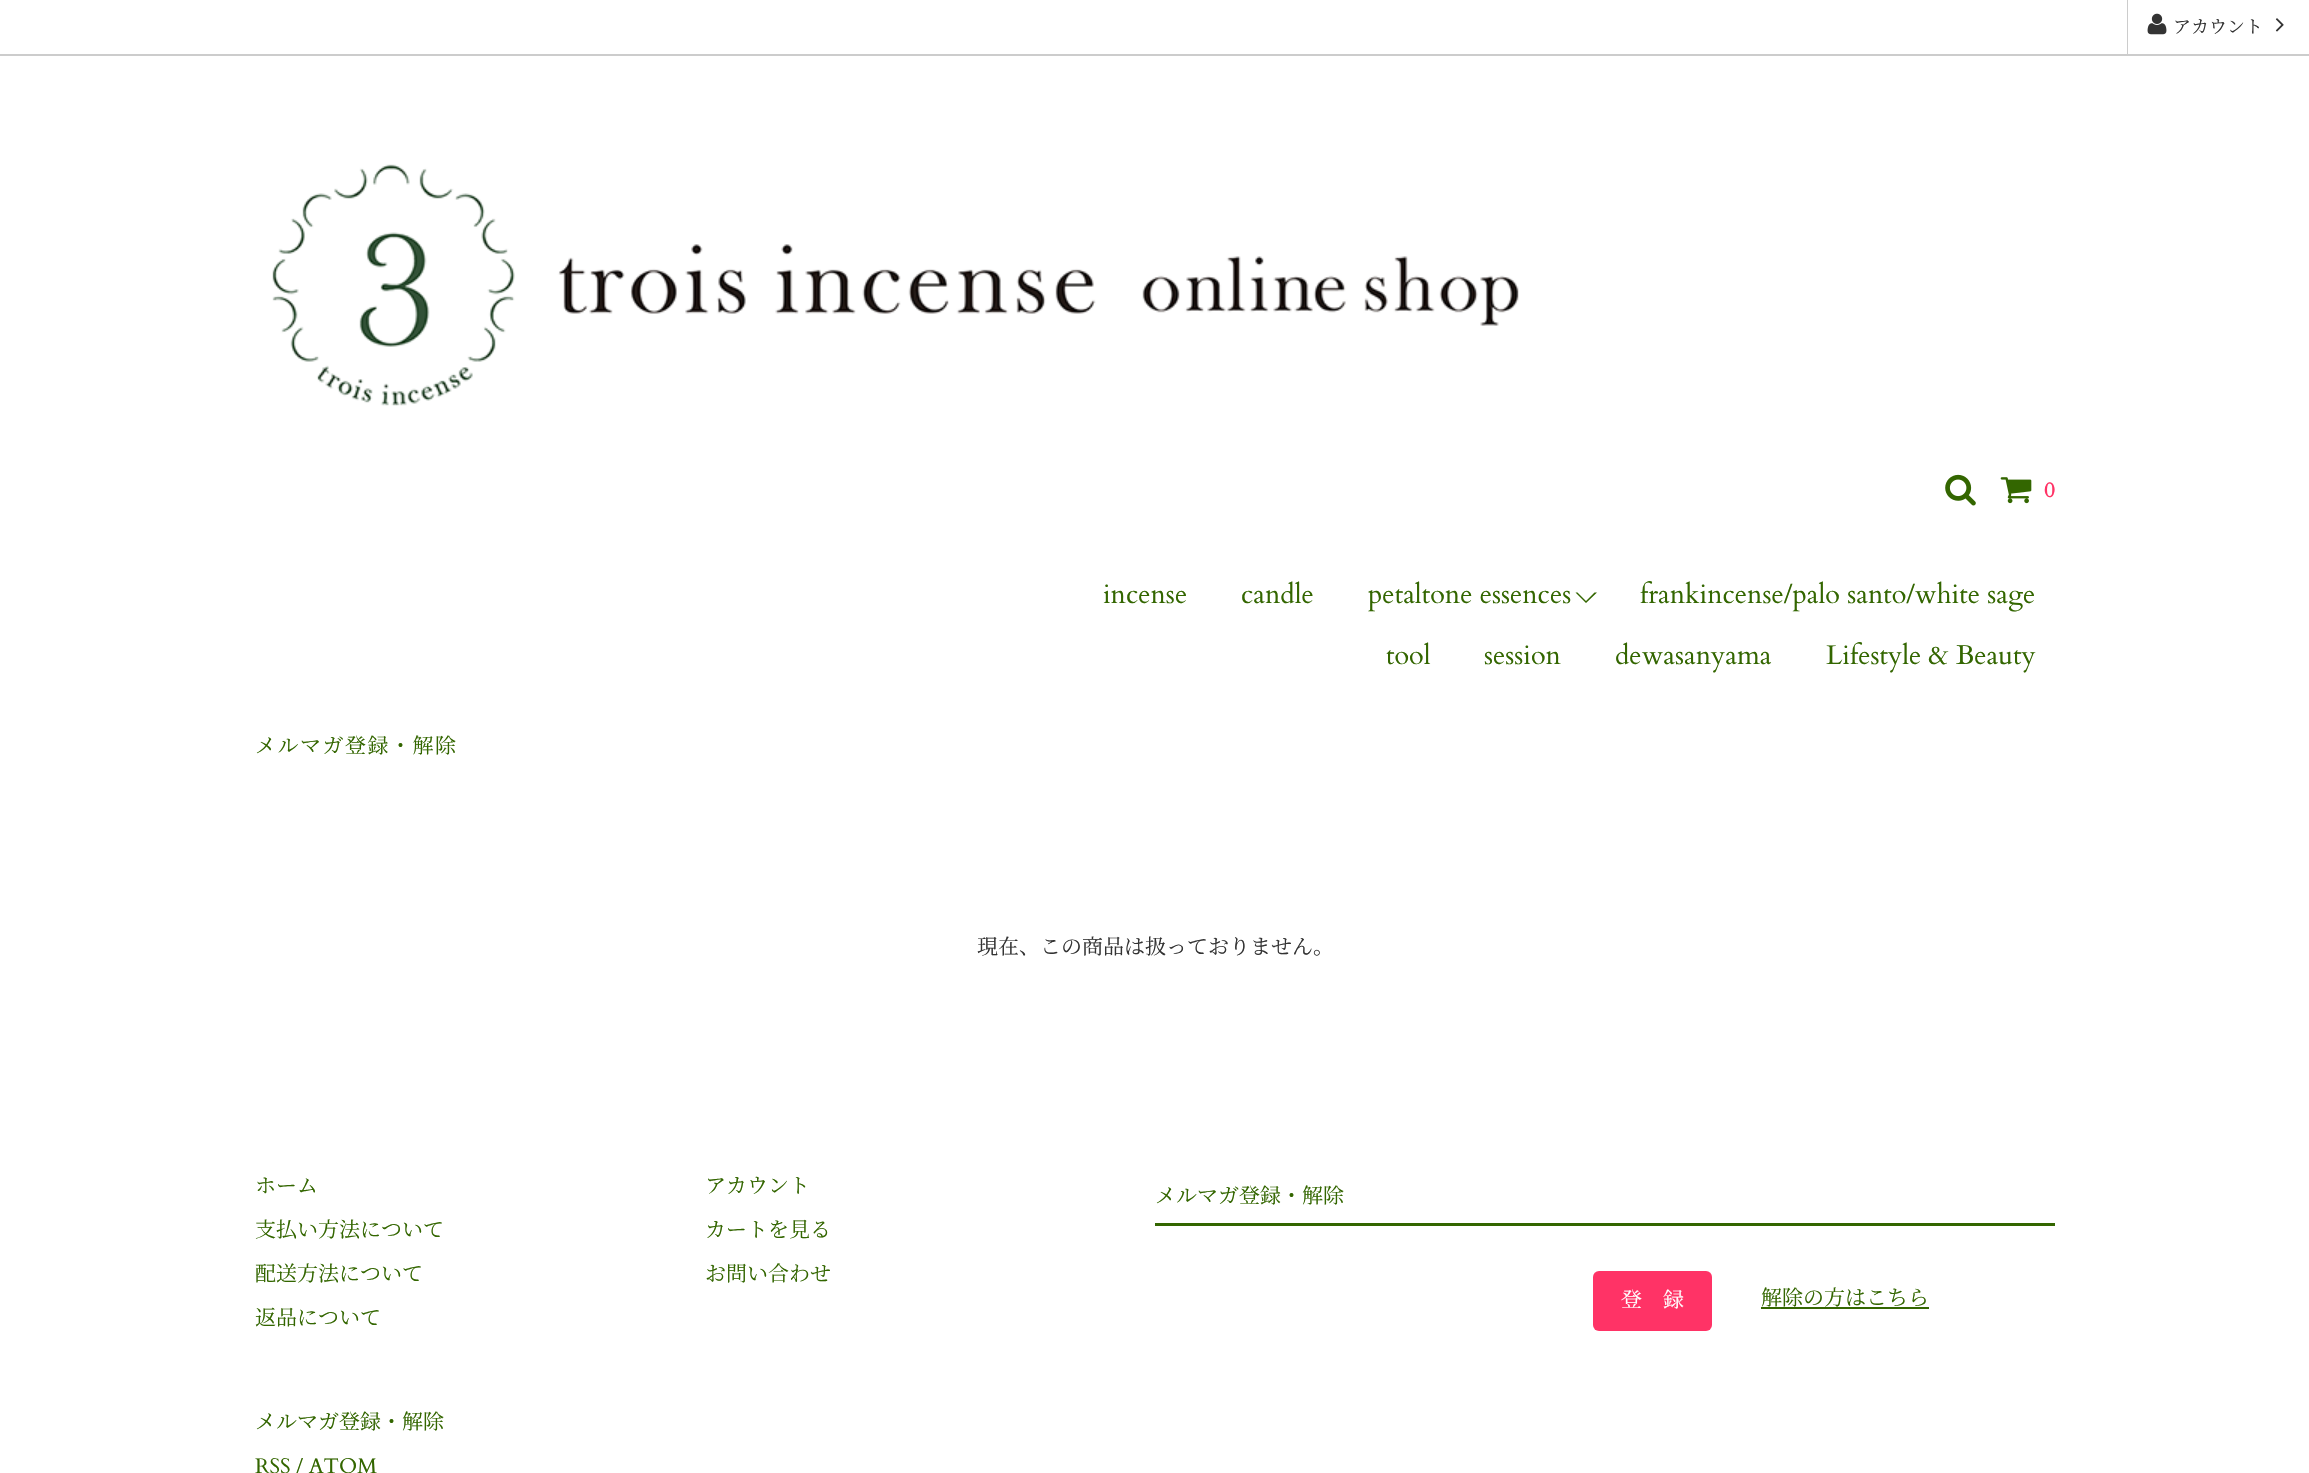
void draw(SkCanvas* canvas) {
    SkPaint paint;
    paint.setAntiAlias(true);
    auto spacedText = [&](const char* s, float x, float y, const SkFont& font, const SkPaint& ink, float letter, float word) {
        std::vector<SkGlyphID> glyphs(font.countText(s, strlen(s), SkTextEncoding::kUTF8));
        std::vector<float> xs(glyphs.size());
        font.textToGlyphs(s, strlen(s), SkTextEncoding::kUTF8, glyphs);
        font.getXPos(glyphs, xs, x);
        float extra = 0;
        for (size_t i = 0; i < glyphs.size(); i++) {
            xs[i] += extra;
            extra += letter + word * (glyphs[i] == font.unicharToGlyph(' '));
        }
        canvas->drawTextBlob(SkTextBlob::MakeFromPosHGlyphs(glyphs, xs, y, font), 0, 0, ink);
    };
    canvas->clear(0xFFFFFFFF);
    paint.setColor(0xFFCCCCCC);
    canvas->drawRect(SkRect::MakeXYWH(0, 54, 2309, 2), paint);
    canvas->drawRect(SkRect::MakeXYWH(2127, 0, 1, 54), paint);
    canvas->drawImageRect(SkImages::DeferredFromEncodedData(SkData::MakeFromFileName("img1.png")), SkRect::MakeXYWH(2147, 13, 20, 22), SkSamplingOptions());
    SkFont font1(fontMgr->matchFamilyStyle("Noto Serif JP", SkFontStyle::Normal()), 18);
    font1.setSubpixel(true);
    paint.setColor(0xFF333333);
    canvas->drawString("アカウント", 2173, 33, font1, paint);
    canvas->drawImageRect(SkImages::DeferredFromEncodedData(SkData::MakeFromFileName("img2.png")), SkRect::MakeXYWH(2275, 18, 9, 14), SkSamplingOptions());
    canvas->drawImageRect(SkImages::DeferredFromEncodedData(SkData::MakeFromFileName("img3.png")), SkRect::MakeXYWH(272, 164, 1247, 242), SkSamplingOptions());
    canvas->drawImageRect(SkImages::DeferredFromEncodedData(SkData::MakeFromFileName("img4.png")), SkRect::MakeXYWH(1945, 474, 31, 32), SkSamplingOptions());
    canvas->drawImageRect(SkImages::DeferredFromEncodedData(SkData::MakeFromFileName("img5.png")), SkRect::MakeXYWH(2000, 477, 32, 27), SkSamplingOptions());
    SkFont font2(fontMgr->matchFamilyStyle("Cardo", SkFontStyle::Bold()), 21);
    font2.setSubpixel(true);
    paint.setColor(0xFFFF3366);
    canvas->drawString("0", 2044, 497, font2, paint);
    SkFont font3(fontMgr->matchFamilyStyle("Cardo", SkFontStyle::Normal()), 27);
    font3.setSubpixel(true);
    paint.setColor(0xFF336600);
    canvas->drawString("incense", 1103, 603, font3, paint);
    canvas->drawString("candle", 1241, 603, font3, paint);
    canvas->drawString("petaltone essences", 1368, 603, font3, paint);
    canvas->drawPath(SkPathBuilder().moveTo(1597, 592.5f).lineTo(1586, 603).lineTo(1586, 601).lineTo(1594.5f, 592.5f).close().moveTo(1586, 603).lineTo(1575.5f, 592.5f).lineTo(1577.5f, 592.5f).lineTo(1586, 601).close().detach(), paint);
    canvas->drawString("frankincense/palo santo/white sage", 1640, 603, font3, paint);
    canvas->drawString("tool", 1386, 664, font3, paint);
    canvas->drawString("session", 1484, 664, font3, paint);
    canvas->drawString("dewasanyama", 1615, 664, font3, paint);
    canvas->drawString("Lifestyle & Beauty", 1826, 664, font3, paint);
    SkFont font4(fontMgr->matchFamilyStyle("Noto Serif JP", SkFontStyle::Normal()), 21);
    font4.setSubpixel(true);
    spacedText("メルマガ登録・解除", 255, 753, font4, paint, 1.5f, 0);
    paint.setColor(0xFF333333);
    canvas->drawString("現在、この商品は扱っておりません。", 977, 954, font4, paint);
    paint.setColor(0xFF336600);
    canvas->drawString("ホーム", 255, 1193, font4, paint);
    canvas->drawString("支払い方法について", 255, 1237, font4, paint);
    canvas->drawString("配送方法について", 255, 1281, font4, paint);
    canvas->drawString("返品について", 255, 1325, font4, paint);
    canvas->drawString("アカウント", 705, 1193, font4, paint);
    canvas->drawString("カートを見る", 705, 1237, font4, paint);
    canvas->drawString("お問い合わせ", 705, 1281, font4, paint);
    canvas->drawRect(SkRect::MakeXYWH(1155, 1223, 900, 3), paint);
    canvas->drawString("メルマガ登録・解除", 1155, 1203, font4, paint);
    paint.setColor(0xFFFF3366);
    canvas->drawRoundRect(SkRect::MakeXYWH(1593, 1271, 119, 60), 6, 6, paint);
    paint.setColor(0xFFFFFFFF);
    canvas->drawString("登　録", 1621, 1307, font4, paint);
    paint.setColor(0xFF336600);
    canvas->drawString("解除の方はこちら", 1761, 1305, font4, paint);
    canvas->drawRect(SkRect::MakeXYWH(1761, 1307, 168, 2), paint);
    canvas->drawString("メルマガ登録・解除", 255, 1429, font4, paint);
    SkFont font5(fontMgr->matchFamilyStyle("Cardo", SkFontStyle::Normal()), 21);
    font5.setSubpixel(true);
    canvas->drawString("RSS / ATOM", 255, 1473, font5, paint);
}
